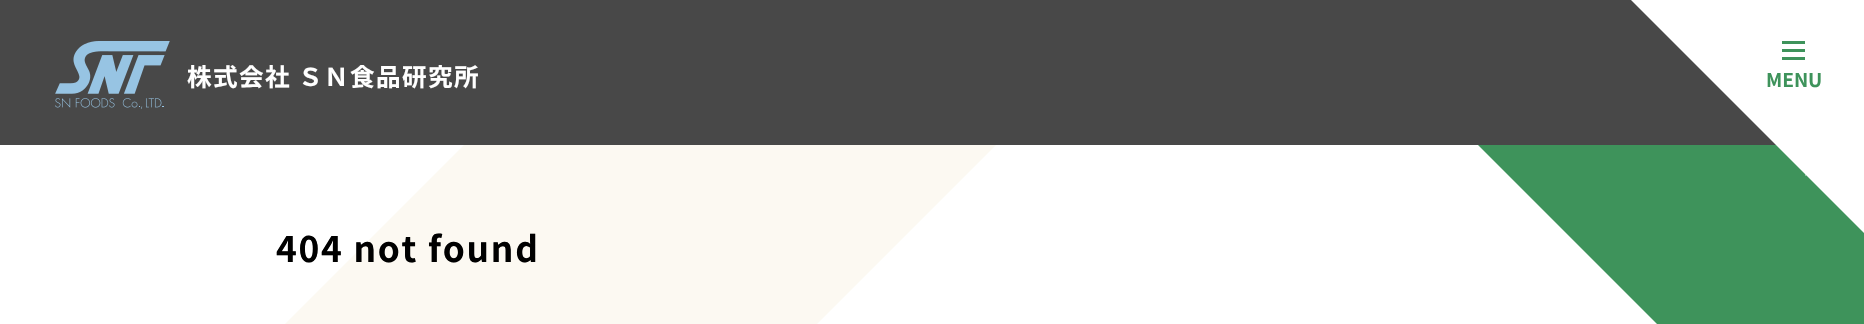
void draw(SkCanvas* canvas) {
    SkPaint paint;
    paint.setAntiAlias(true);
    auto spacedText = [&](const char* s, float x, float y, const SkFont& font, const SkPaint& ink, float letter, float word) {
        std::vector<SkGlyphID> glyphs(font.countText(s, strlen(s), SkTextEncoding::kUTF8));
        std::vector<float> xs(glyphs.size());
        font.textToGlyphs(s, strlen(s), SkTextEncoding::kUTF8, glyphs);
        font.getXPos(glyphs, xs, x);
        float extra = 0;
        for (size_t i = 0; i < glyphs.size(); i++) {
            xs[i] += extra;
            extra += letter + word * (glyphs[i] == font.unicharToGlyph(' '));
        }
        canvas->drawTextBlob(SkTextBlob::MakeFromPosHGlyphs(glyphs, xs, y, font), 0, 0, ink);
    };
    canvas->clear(0xFFFFFFFF);
    paint.setColor(0xFFFCF9F2);
    canvas->drawPath(SkPathBuilder().moveTo(929, -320).lineTo(1195, -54).lineTo(22, 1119).lineTo(-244, 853).close().detach(), paint);
    paint.setColor(0xFF3E935B);
    canvas->drawPath(SkPathBuilder().moveTo(1864, 0).lineTo(1864, 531).lineTo(1333, 0).close().detach(), paint);
    paint.setColor(0xFF484848);
    canvas->drawRect(SkRect::MakeXYWH(0, 0, 1776, 145), paint);
    canvas->drawImageRect(SkImages::DeferredFromEncodedData(SkData::MakeFromFileName("img1.png")), SkRect::MakeXYWH(55, 41, 115, 68), SkSamplingOptions());
    SkFont font1(fontMgr->matchFamilyStyle("Noto Sans JP", SkFontStyle::Bold()), 24.6f);
    font1.setSubpixel(true);
    paint.setColor(0xFFFFFFFF);
    spacedText("株式会社 ＳＮ食品研究所", 187, 86, font1, paint, 1.4f, 0);
    canvas->drawPath(SkPathBuilder().moveTo(1864, 0).lineTo(1864, 233).lineTo(1631, 0).close().detach(), paint);
    paint.setColor(0xFF3E935B);
    canvas->drawRect(SkRect::MakeXYWH(1782, 41, 23, 3), paint);
    canvas->drawRect(SkRect::MakeXYWH(1782, 49, 23, 3), paint);
    canvas->drawRect(SkRect::MakeXYWH(1782, 57, 23, 3), paint);
    SkFont font2(fontMgr->matchFamilyStyle("Noto Sans JP", SkFontStyle::Bold()), 19);
    font2.setSubpixel(true);
    canvas->drawString("MENU", 1766, 87, font2, paint);
    SkFont font3(fontMgr->matchFamilyStyle("Noto Sans JP", SkFontStyle::Bold()), 35.25f);
    font3.setSubpixel(true);
    paint.setColor(0xFF000000);
    spacedText("404 not found", 276, 262, font3, paint, 1.75f, 0);
    paint.setColor(0xFFFFFFFF);
    canvas->drawPath(SkPathBuilder().moveTo(1824, 157.5f).lineTo(1805.5f, 176).lineTo(1805.5f, 174.5f).lineTo(1823, 157.5f).close().detach(), paint);
}
